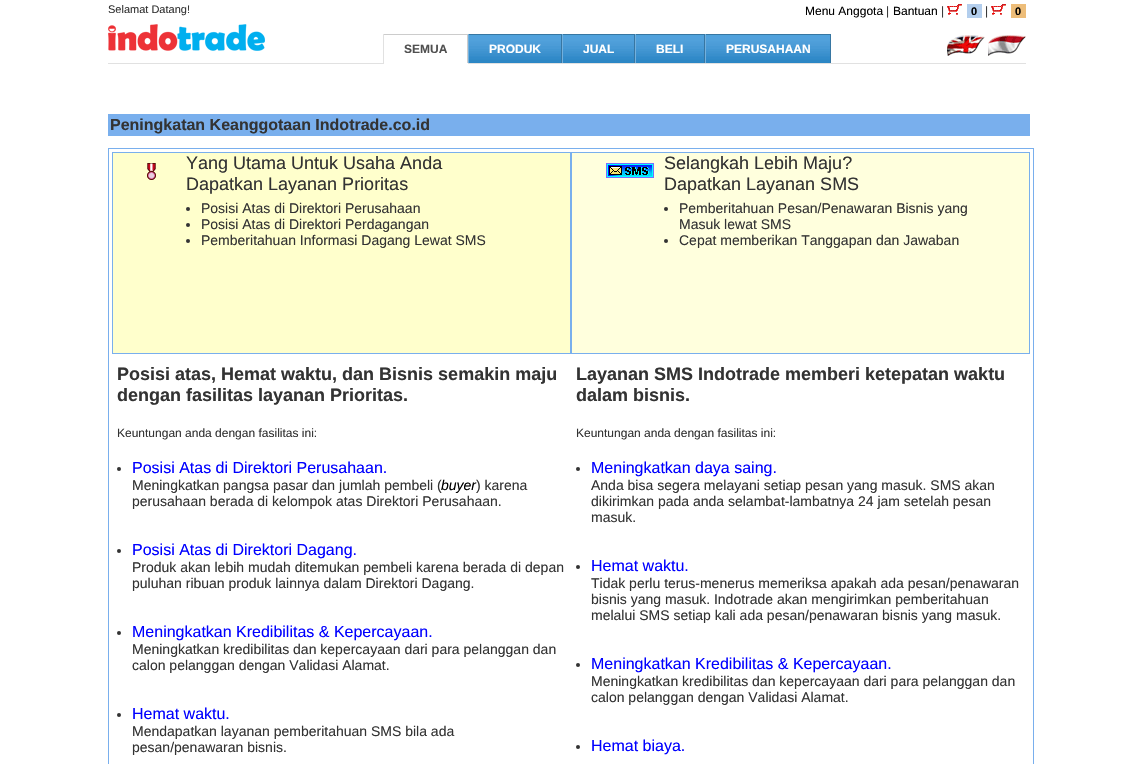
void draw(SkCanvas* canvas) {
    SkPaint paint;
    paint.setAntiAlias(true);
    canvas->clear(0xFFFFFFFF);
    SkFont font1(fontMgr->matchFamilyStyle("Liberation Sans", SkFontStyle::Normal()), 11);
    font1.setSubpixel(true);
    paint.setColor(0xFF333333);
    canvas->drawString("Selamat Datang!", 108, 13, font1, paint);
    SkFont font2(fontMgr->matchFamilyStyle("Liberation Sans", SkFontStyle::Normal()), 12);
    font2.setSubpixel(true);
    paint.setColor(0xFF000000);
    canvas->drawString("Menu Anggota", 805, 15, font2, paint);
    paint.setColor(0xFF333333);
    canvas->drawString("|", 886, 15, font2, paint);
    paint.setColor(0xFF000000);
    canvas->drawString("Bantuan", 893, 15, font2, paint);
    paint.setColor(0xFF333333);
    canvas->drawString("|", 941, 15, font2, paint);
    canvas->drawImageRect(SkImages::DeferredFromEncodedData(SkData::MakeFromFileName("img1.png")), SkRect::MakeXYWH(947, 4, 15, 11), SkSamplingOptions());
    paint.setColor(0xFFB3CEED);
    canvas->drawRect(SkRect::MakeXYWH(967, 4, 15, 14), paint);
    SkFont font3(fontMgr->matchFamilyStyle("Liberation Sans", SkFontStyle::Bold()), 11);
    font3.setSubpixel(true);
    paint.setColor(0xFF000000);
    canvas->drawString("0", 971, 15, font3, paint);
    paint.setColor(0xFF333333);
    canvas->drawString("|", 985, 15, font2, paint);
    canvas->drawImageRect(SkImages::DeferredFromEncodedData(SkData::MakeFromFileName("img1.png")), SkRect::MakeXYWH(991, 4, 15, 11), SkSamplingOptions());
    paint.setColor(0xFFEDBD79);
    canvas->drawRect(SkRect::MakeXYWH(1011, 4, 15, 14), paint);
    paint.setColor(0xFF000000);
    canvas->drawString("0", 1015, 15, font3, paint);
    canvas->drawImageRect(SkImages::DeferredFromEncodedData(SkData::MakeFromFileName("img2.png")), SkRect::MakeXYWH(108, 24, 157, 27), SkSamplingOptions());
    canvas->drawImageRect(SkImages::DeferredFromEncodedData(SkData::MakeFromFileName("img3.png")), SkRect::MakeXYWH(947, 35, 38, 21), SkSamplingOptions());
    canvas->drawImageRect(SkImages::DeferredFromEncodedData(SkData::MakeFromFileName("img4.png")), SkRect::MakeXYWH(988, 35, 38, 21), SkSamplingOptions());
    paint.setColor(0xFFCCCCCC);
    canvas->drawRect(SkRect::MakeXYWH(383, 34, 85, 1), paint);
    paint.setColor(0xFFE1E1E1);
    canvas->drawRect(SkRect::MakeXYWH(108, 63, 918, 1), paint);
    paint.setColor(0xFFCCCCCC);
    canvas->drawRect(SkRect::MakeXYWH(467, 34, 1, 30), paint);
    paint.setColor(0xFFFFFFFF);
    canvas->drawRect(SkRect::MakeXYWH(383, 63, 85, 1), paint);
    paint.setColor(0xFFE1E1E1);
    canvas->drawRect(SkRect::MakeXYWH(383, 34, 1, 30), paint);
    SkFont font4(fontMgr->matchFamilyStyle("Liberation Sans", SkFontStyle::Bold()), 12);
    font4.setSubpixel(true);
    paint.setColor(0xFF505050);
    canvas->drawString("SEMUA", 404, 53, font4, paint);
    canvas->drawImageRect(SkImages::DeferredFromEncodedData(SkData::MakeFromFileName("img5.png")), SkRect::MakeXYWH(469, 35, 92, 28), SkSamplingOptions());
    paint.setColor(0xFF3776A2);
    canvas->drawRect(SkRect::MakeXYWH(468, 34, 363, 1), paint);
    canvas->drawRect(SkRect::MakeXYWH(561, 34, 1, 29), paint);
    paint.setColor(0xFF72B0DD);
    canvas->drawRect(SkRect::MakeXYWH(468, 34, 1, 29), paint);
    paint.setColor(0xFFFFFFFF);
    canvas->drawString("PRODUK", 489, 53, font4, paint);
    canvas->drawImageRect(SkImages::DeferredFromEncodedData(SkData::MakeFromFileName("img6.png")), SkRect::MakeXYWH(563, 35, 71, 28), SkSamplingOptions());
    paint.setColor(0xFF3776A2);
    canvas->drawRect(SkRect::MakeXYWH(634, 34, 1, 29), paint);
    paint.setColor(0xFF72B0DD);
    canvas->drawRect(SkRect::MakeXYWH(562, 34, 1, 29), paint);
    paint.setColor(0xFFFFFFFF);
    canvas->drawString("JUAL", 583, 53, font4, paint);
    canvas->drawImageRect(SkImages::DeferredFromEncodedData(SkData::MakeFromFileName("img7.png")), SkRect::MakeXYWH(636, 35, 68, 28), SkSamplingOptions());
    paint.setColor(0xFF3776A2);
    canvas->drawRect(SkRect::MakeXYWH(704, 34, 1, 29), paint);
    paint.setColor(0xFF72B0DD);
    canvas->drawRect(SkRect::MakeXYWH(635, 34, 1, 29), paint);
    paint.setColor(0xFFFFFFFF);
    canvas->drawString("BELI", 656, 53, font4, paint);
    canvas->drawImageRect(SkImages::DeferredFromEncodedData(SkData::MakeFromFileName("img8.png")), SkRect::MakeXYWH(706, 35, 124, 28), SkSamplingOptions());
    paint.setColor(0xFF3776A2);
    canvas->drawRect(SkRect::MakeXYWH(830, 34, 1, 29), paint);
    paint.setColor(0xFF72B0DD);
    canvas->drawRect(SkRect::MakeXYWH(705, 34, 1, 29), paint);
    paint.setColor(0xFFFFFFFF);
    canvas->drawString("PERUSAHAAN", 726, 53, font4, paint);
    paint.setColor(0xFF79AFED);
    canvas->drawRect(SkRect::MakeXYWH(108, 114, 922, 22), paint);
    SkFont font5(fontMgr->matchFamilyStyle("Liberation Sans", SkFontStyle::Bold()), 16);
    font5.setSubpixel(true);
    paint.setColor(0xFF333333);
    canvas->drawString("Peningkatan Keanggotaan Indotrade.co.id", 110, 130, font5, paint);
    paint.setStyle(SkPaint::kStroke_Style);
    paint.setStrokeWidth(1);
    paint.setColor(0xFF79AFED);
    canvas->drawRect(SkRect::MakeXYWH(108.5f, 148.5f, 925, 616), paint);
    paint.setStyle(SkPaint::kFill_Style);
    paint.setColor(0xFFFFFFCC);
    canvas->drawRect(SkRect::MakeXYWH(112.5f, 152.5f, 458, 201), paint);
    paint.setStyle(SkPaint::kStroke_Style);
    paint.setColor(0xFF79AFED);
    canvas->drawRect(SkRect::MakeXYWH(112.5f, 152.5f, 458, 201), paint);
    canvas->drawImageRect(SkImages::DeferredFromEncodedData(SkData::MakeFromFileName("img9.png")), SkRect::MakeXYWH(147, 163, 9, 17), SkSamplingOptions());
    SkFont font6(fontMgr->matchFamilyStyle("Liberation Sans", SkFontStyle::Normal()), 18);
    font6.setSubpixel(true);
    paint.setStyle(SkPaint::kFill_Style);
    paint.setColor(0xFF333333);
    canvas->drawString("Yang Utama Untuk Usaha Anda", 186, 169, font6, paint);
    canvas->drawString("Dapatkan Layanan Prioritas", 186, 190, font6, paint);
    canvas->drawCircle(188, 209, 2, paint);
    SkFont font7(fontMgr->matchFamilyStyle("Liberation Sans", SkFontStyle::Normal()), 14);
    font7.setSubpixel(true);
    canvas->drawString("Posisi Atas di Direktori Perusahaan", 201, 213, font7, paint);
    canvas->drawCircle(188, 225, 2, paint);
    canvas->drawString("Posisi Atas di Direktori Perdagangan", 201, 229, font7, paint);
    canvas->drawCircle(188, 241, 2, paint);
    canvas->drawString("Pemberitahuan Informasi Dagang Lewat SMS", 201, 245, font7, paint);
    paint.setColor(0xFFFFFFDD);
    canvas->drawRect(SkRect::MakeXYWH(571.5f, 152.5f, 458, 201), paint);
    paint.setStyle(SkPaint::kStroke_Style);
    paint.setColor(0xFF79AFED);
    canvas->drawRect(SkRect::MakeXYWH(571.5f, 152.5f, 458, 201), paint);
    canvas->drawImageRect(SkImages::DeferredFromEncodedData(SkData::MakeFromFileName("img10.png")), SkRect::MakeXYWH(606, 163, 48, 15), SkSamplingOptions());
    paint.setStyle(SkPaint::kFill_Style);
    paint.setColor(0xFF333333);
    canvas->drawString("Selangkah Lebih Maju?", 664, 169, font6, paint);
    canvas->drawString("Dapatkan Layanan SMS", 664, 190, font6, paint);
    canvas->drawCircle(666, 209, 2, paint);
    canvas->drawString("Pemberitahuan Pesan/Penawaran Bisnis yang", 679, 213, font7, paint);
    canvas->drawString("Masuk lewat SMS", 679, 229, font7, paint);
    canvas->drawCircle(666, 241, 2, paint);
    canvas->drawString("Cepat memberikan Tanggapan dan Jawaban", 679, 245, font7, paint);
    SkFont font8(fontMgr->matchFamilyStyle("Liberation Sans", SkFontStyle::Bold()), 18);
    font8.setSubpixel(true);
    canvas->drawString("Posisi atas, Hemat waktu, dan Bisnis semakin maju", 117, 380, font8, paint);
    canvas->drawString("dengan fasilitas layanan Prioritas.", 117, 401, font8, paint);
    canvas->drawString("Keuntungan anda dengan fasilitas ini:", 117, 437, font2, paint);
    canvas->drawCircle(119, 469, 2, paint);
    SkFont font9(fontMgr->matchFamilyStyle("Liberation Sans", SkFontStyle::Normal()), 16);
    font9.setSubpixel(true);
    paint.setColor(0xFF0000FF);
    canvas->drawString("Posisi Atas di Direktori Perusahaan.", 132, 473, font9, paint);
    paint.setColor(0xFF333333);
    canvas->drawString("Meningkatkan pangsa pasar dan jumlah pembeli (", 132, 490, font7, paint);
    SkFont font10(fontMgr->matchFamilyStyle("Liberation Sans", SkFontStyle::Italic()), 14);
    font10.setSubpixel(true);
    paint.setColor(0xFF000000);
    canvas->drawString("buyer", 441, 490, font10, paint);
    paint.setColor(0xFF333333);
    canvas->drawString(") karena", 476, 490, font7, paint);
    canvas->drawString("perusahaan berada di kelompok atas Direktori Perusahaan.", 132, 506, font7, paint);
    canvas->drawCircle(119, 551, 2, paint);
    paint.setColor(0xFF0000FF);
    canvas->drawString("Posisi Atas di Direktori Dagang.", 132, 555, font9, paint);
    paint.setColor(0xFF333333);
    canvas->drawString("Produk akan lebih mudah ditemukan pembeli karena berada di depan", 132, 572, font7, paint);
    canvas->drawString("puluhan ribuan produk lainnya dalam Direktori Dagang.", 132, 588, font7, paint);
    canvas->drawCircle(119, 633, 2, paint);
    paint.setColor(0xFF0000FF);
    canvas->drawString("Meningkatkan Kredibilitas & Kepercayaan.", 132, 637, font9, paint);
    paint.setColor(0xFF333333);
    canvas->drawString("Meningkatkan kredibilitas dan kepercayaan dari para pelanggan dan", 132, 654, font7, paint);
    canvas->drawString("calon pelanggan dengan Validasi Alamat.", 132, 670, font7, paint);
    canvas->drawCircle(119, 715, 2, paint);
    paint.setColor(0xFF0000FF);
    canvas->drawString("Hemat waktu.", 132, 719, font9, paint);
    paint.setColor(0xFF333333);
    canvas->drawString("Mendapatkan layanan pemberitahuan SMS bila ada", 132, 736, font7, paint);
    canvas->drawString("pesan/penawaran bisnis.", 132, 752, font7, paint);
    canvas->drawString("Layanan SMS Indotrade memberi ketepatan waktu", 576, 380, font8, paint);
    canvas->drawString("dalam bisnis.", 576, 401, font8, paint);
    canvas->drawString("Keuntungan anda dengan fasilitas ini:", 576, 437, font2, paint);
    canvas->drawCircle(578, 469, 2, paint);
    paint.setColor(0xFF0000FF);
    canvas->drawString("Meningkatkan daya saing.", 591, 473, font9, paint);
    paint.setColor(0xFF333333);
    canvas->drawString("Anda bisa segera melayani setiap pesan yang masuk. SMS akan", 591, 490, font7, paint);
    canvas->drawString("dikirimkan pada anda selambat-lambatnya 24 jam setelah pesan", 591, 506, font7, paint);
    canvas->drawString("masuk.", 591, 522, font7, paint);
    canvas->drawCircle(578, 567, 2, paint);
    paint.setColor(0xFF0000FF);
    canvas->drawString("Hemat waktu.", 591, 571, font9, paint);
    paint.setColor(0xFF333333);
    canvas->drawString("Tidak perlu terus-menerus memeriksa apakah ada pesan/penawaran", 591, 588, font7, paint);
    canvas->drawString("bisnis yang masuk. Indotrade akan mengirimkan pemberitahuan", 591, 604, font7, paint);
    canvas->drawString("melalui SMS setiap kali ada pesan/penawaran bisnis yang masuk.", 591, 620, font7, paint);
    canvas->drawCircle(578, 665, 2, paint);
    paint.setColor(0xFF0000FF);
    canvas->drawString("Meningkatkan Kredibilitas & Kepercayaan.", 591, 669, font9, paint);
    paint.setColor(0xFF333333);
    canvas->drawString("Meningkatkan kredibilitas dan kepercayaan dari para pelanggan dan", 591, 686, font7, paint);
    canvas->drawString("calon pelanggan dengan Validasi Alamat.", 591, 702, font7, paint);
    canvas->drawCircle(578, 747, 2, paint);
    paint.setColor(0xFF0000FF);
    canvas->drawString("Hemat biaya.", 591, 751, font9, paint);
}
